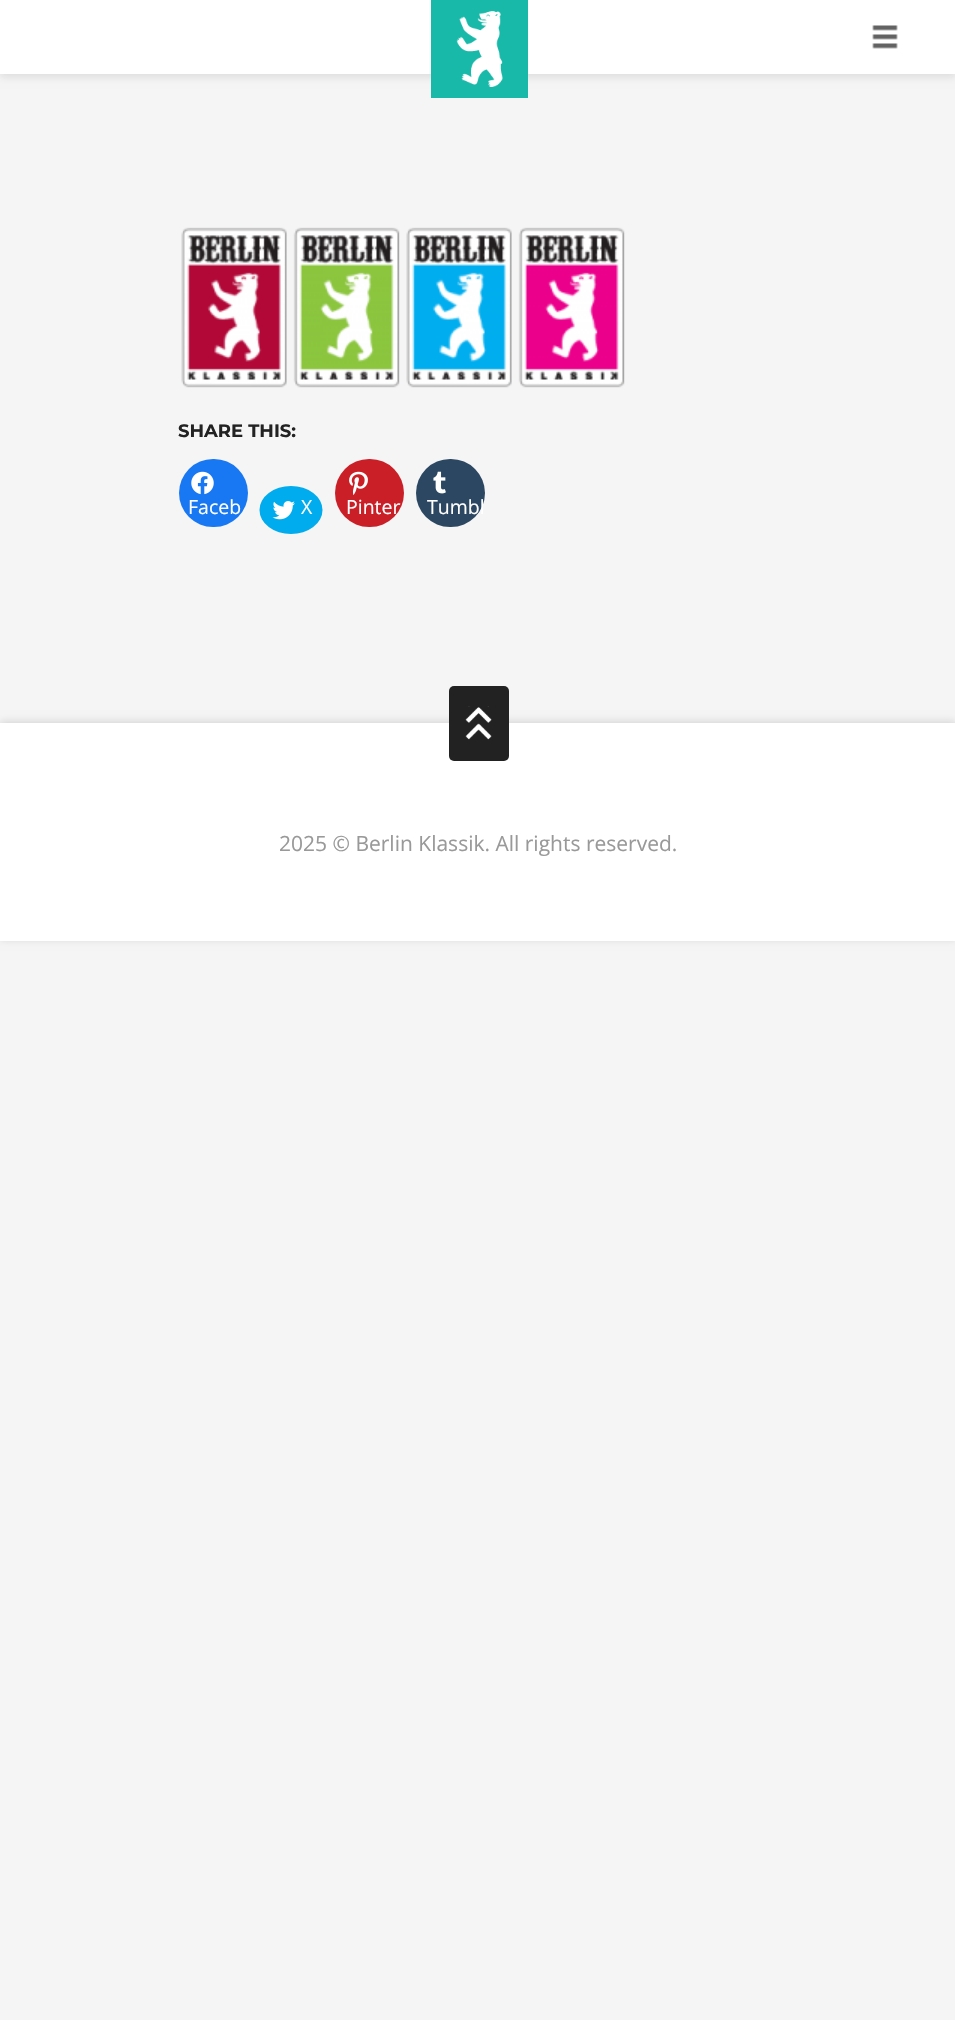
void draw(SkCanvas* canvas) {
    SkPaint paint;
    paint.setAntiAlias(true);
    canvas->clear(0xFFF5F5F5);
    paint.setColor(0x1A000000);
    paint.setMaskFilter(SkMaskFilter::MakeBlur(kNormal_SkBlurStyle, 4));
    canvas->drawRect(SkRect::MakeXYWH(0, 3, 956, 74), paint);
    paint.setMaskFilter(nullptr);
    paint.setColor(0xFFFFFFFF);
    canvas->drawRect(SkRect::MakeXYWH(0, 0, 955, 74), paint);
    paint.setColor(0xFF19B9A9);
    canvas->drawRect(SkRect::MakeXYWH(431, 0, 97, 98), paint);
    canvas->drawImageRect(SkImages::DeferredFromEncodedData(SkData::MakeFromFileName("img1.png")), SkRect::MakeXYWH(456, 11, 47, 76), SkSamplingOptions());
    canvas->drawImageRect(SkImages::DeferredFromEncodedData(SkData::MakeFromFileName("img2.png")), SkRect::MakeXYWH(872, 25, 26, 24), SkSamplingOptions());
    canvas->drawImageRect(SkImages::DeferredFromEncodedData(SkData::MakeFromFileName("img3.png")), SkRect::MakeXYWH(181, 227, 444, 161), SkSamplingOptions());
    SkFont font1(fontMgr->matchFamilyStyle("Montserrat", SkFontStyle::Bold()), 18);
    font1.setSubpixel(true);
    paint.setColor(0xFF222222);
    canvas->drawString("SHARE THIS:", 178, 437, font1, paint);
    paint.setColor(0xFF1877F2);
    canvas->drawRoundRect(SkRect::MakeXYWH(179, 459, 69, 68), 34, 34, paint);
    canvas->drawImageRect(SkImages::DeferredFromEncodedData(SkData::MakeFromFileName("img4.png")), SkRect::MakeXYWH(191, 471, 23, 24), SkSamplingOptions());
    SkFont font2(fontMgr->matchFamilyStyle("Open Sans", SkFontStyle::Normal()), 19.5f);
    font2.setSubpixel(true);
    paint.setColor(0xFFFFFFFF);
    canvas->drawString("Faceb", 188, 514, font2, paint);
    paint.setColor(0xFF00ACEE);
    canvas->drawOval(SkRect::MakeXYWH(259.5f, 486, 63, 48), paint);
    canvas->drawImageRect(SkImages::DeferredFromEncodedData(SkData::MakeFromFileName("img5.png")), SkRect::MakeXYWH(272, 501, 23, 19), SkSamplingOptions());
    paint.setColor(0xFFFFFFFF);
    canvas->drawString("X", 301, 514, font2, paint);
    paint.setColor(0xFFCA1F27);
    canvas->drawRoundRect(SkRect::MakeXYWH(335, 459, 69, 68), 34, 34, paint);
    canvas->drawImageRect(SkImages::DeferredFromEncodedData(SkData::MakeFromFileName("img6.png")), SkRect::MakeXYWH(349, 471, 19, 24), SkSamplingOptions());
    paint.setColor(0xFFFFFFFF);
    canvas->drawString("Pinter", 346, 514, font2, paint);
    paint.setColor(0xFF2C4762);
    canvas->drawRoundRect(SkRect::MakeXYWH(416, 459, 69, 68), 34, 34, paint);
    canvas->drawImageRect(SkImages::DeferredFromEncodedData(SkData::MakeFromFileName("img7.png")), SkRect::MakeXYWH(433, 471, 13, 23), SkSamplingOptions());
    paint.setColor(0xFFFFFFFF);
    canvas->drawString("Tumbl", 427, 514, font2, paint);
    paint.setColor(0x26000000);
    paint.setMaskFilter(SkMaskFilter::MakeBlur(kNormal_SkBlurStyle, 4));
    canvas->drawRect(SkRect::MakeXYWH(0, 722, 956, 217), paint);
    paint.setMaskFilter(nullptr);
    paint.setColor(0xFFFFFFFF);
    canvas->drawRect(SkRect::MakeXYWH(0, 723, 955, 218), paint);
    paint.setColor(0xFF222222);
    canvas->drawRoundRect(SkRect::MakeXYWH(449, 686, 60, 75), 5, 5, paint);
    canvas->drawImageRect(SkImages::DeferredFromEncodedData(SkData::MakeFromFileName("img8.png")), SkRect::MakeXYWH(465, 706, 27, 34), SkSamplingOptions());
    SkFont font3(fontMgr->matchFamilyStyle("Open Sans", SkFontStyle::Normal()), 21);
    font3.setSubpixel(true);
    paint.setColor(0xFF999999);
    canvas->drawString("2025 © Berlin Klassik. All rights reserved.", 279, 851, font3, paint);
}
